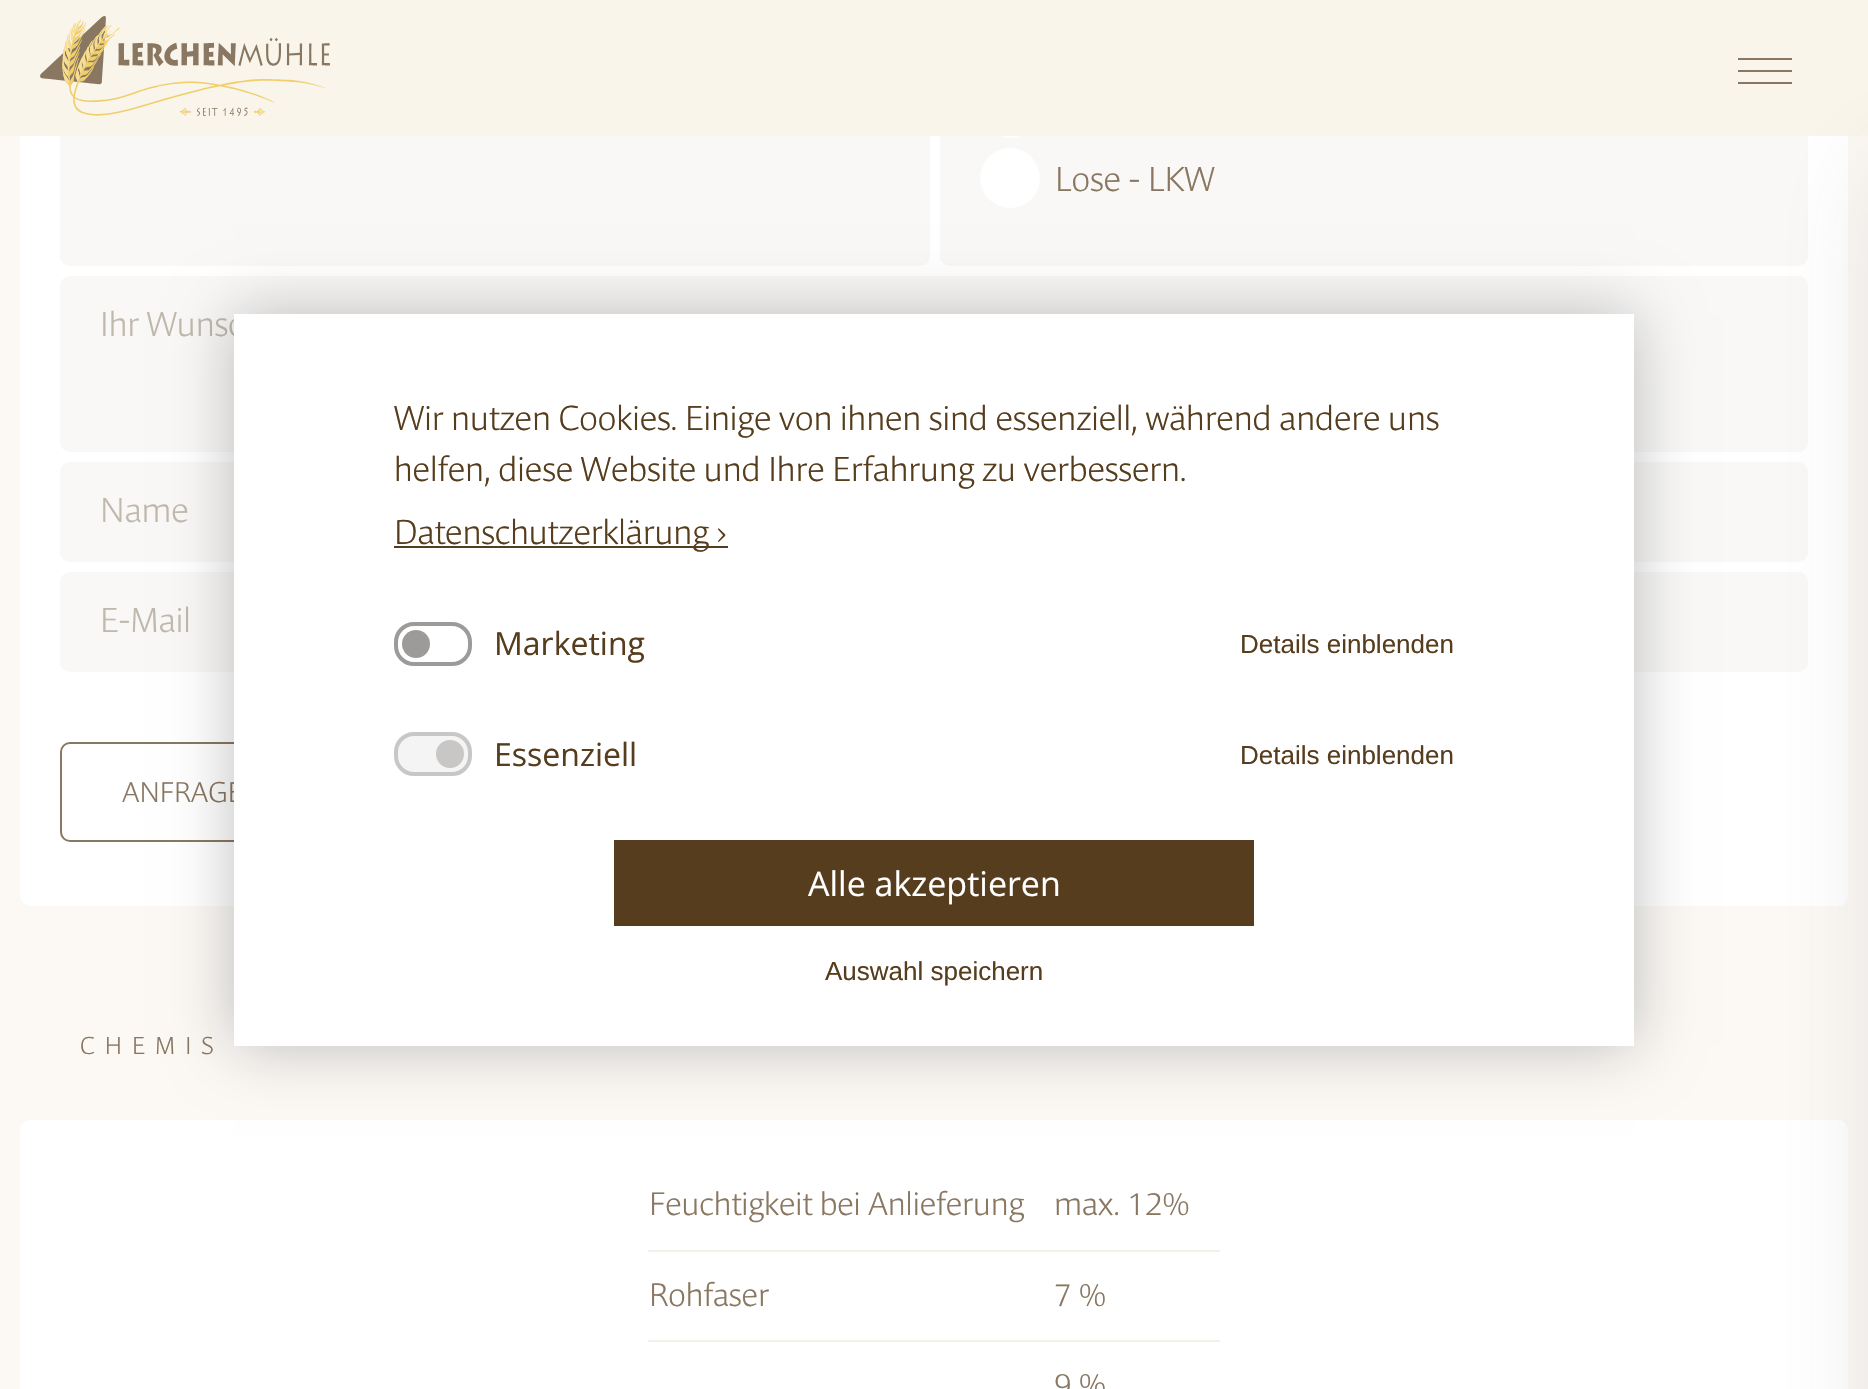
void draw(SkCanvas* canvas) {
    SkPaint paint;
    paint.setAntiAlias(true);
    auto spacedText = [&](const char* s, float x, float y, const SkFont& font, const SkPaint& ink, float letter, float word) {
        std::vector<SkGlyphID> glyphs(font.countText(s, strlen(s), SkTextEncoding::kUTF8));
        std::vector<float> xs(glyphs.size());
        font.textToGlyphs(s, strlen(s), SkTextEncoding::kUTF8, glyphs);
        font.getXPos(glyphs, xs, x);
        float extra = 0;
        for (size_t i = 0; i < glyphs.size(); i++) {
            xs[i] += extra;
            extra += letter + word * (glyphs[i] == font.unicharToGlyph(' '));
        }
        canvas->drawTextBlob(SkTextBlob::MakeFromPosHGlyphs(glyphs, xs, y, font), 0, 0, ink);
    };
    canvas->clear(0xFFFCF9F5);
    paint.setColor(0xFFFFFFFF);
    canvas->drawRoundRect(SkRect::MakeXYWH(20, -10, 1828, 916), 10, 10, paint);
    paint.setColor(0xFFF9F8F7);
    canvas->drawRoundRect(SkRect::MakeXYWH(60, -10, 870, 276), 10, 10, paint);
    canvas->drawRoundRect(SkRect::MakeXYWH(940, -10, 868, 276), 10, 10, paint);
    paint.setColor(0xFFFFFFFF);
    canvas->drawCircle(1010, 108, 30, paint);
    paint.setColor(0xFFF9F5EB);
    canvas->drawRect(SkRect::MakeXYWH(0, 0, 1868, 136), paint);
    canvas->drawImageRect(SkImages::DeferredFromEncodedData(SkData::MakeFromFileName("img1.png")), SkRect::MakeXYWH(40, 16, 290, 100), SkSamplingOptions());
    paint.setColor(0xFF897761);
    canvas->drawRect(SkRect::MakeXYWH(1738, 70, 54, 2), paint);
    canvas->drawRect(SkRect::MakeXYWH(1738, 58, 54, 2), paint);
    canvas->drawRect(SkRect::MakeXYWH(1738, 82, 54, 2), paint);
    paint.setColor(0xFFFFFFFF);
    canvas->drawCircle(1010, 178, 30, paint);
    SkFont font1(fontMgr->matchFamilyStyle("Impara", SkFontStyle(300, SkFontStyle::kNormal_Width, SkFontStyle::kUpright_Slant)), 34);
    font1.setSubpixel(true);
    paint.setColor(0xFF897761);
    canvas->drawString("Lose - LKW", 1055, 191, font1, paint);
    paint.setColor(0xFFF9F8F7);
    canvas->drawRoundRect(SkRect::MakeXYWH(60, 276, 1748, 176), 10, 10, paint);
    paint.setColor(0xFFC1B8AC);
    canvas->drawString("Ihr Wunsc", 100, 336, font1, paint);
    paint.setColor(0xFFF9F8F7);
    canvas->drawRoundRect(SkRect::MakeXYWH(60, 462, 870, 100), 10, 10, paint);
    paint.setColor(0xFFC1B8AC);
    canvas->drawString("Name", 100, 522, font1, paint);
    paint.setColor(0xFFF9F8F7);
    canvas->drawRoundRect(SkRect::MakeXYWH(940, 462, 868, 100), 10, 10, paint);
    canvas->drawRoundRect(SkRect::MakeXYWH(60, 572, 870, 100), 10, 10, paint);
    paint.setColor(0xFFC1B8AC);
    canvas->drawString("E-Mail", 100, 632, font1, paint);
    paint.setColor(0xFFF9F8F7);
    canvas->drawRoundRect(SkRect::MakeXYWH(940, 572, 868, 100), 10, 10, paint);
    paint.setStyle(SkPaint::kStroke_Style);
    paint.setStrokeWidth(2);
    paint.setColor(0xFF897761);
    canvas->drawRoundRect(SkRect::MakeXYWH(61, 743, 404, 98), 9, 9, paint);
    SkFont font2(fontMgr->matchFamilyStyle("Impara", SkFontStyle(300, SkFontStyle::kNormal_Width, SkFontStyle::kUpright_Slant)), 28);
    font2.setSubpixel(true);
    paint.setStyle(SkPaint::kFill_Style);
    canvas->drawString("ANFRAGE", 122, 802, font2, paint);
    SkFont font3(fontMgr->matchFamilyStyle("Impara", SkFontStyle(300, SkFontStyle::kNormal_Width, SkFontStyle::kUpright_Slant)), 24);
    font3.setSubpixel(true);
    spacedText("CHEMIS", 80, 1054, font3, paint, 10, 0);
    paint.setColor(0xFFFFFFFF);
    canvas->drawRoundRect(SkRect::MakeXYWH(20, 1120, 1828, 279), 10, 10, paint);
    paint.setColor(0xFFF3EFE9);
    canvas->drawRect(SkRect::MakeXYWH(648, 1250, 572, 2), paint);
    SkFont font4(fontMgr->matchFamilyStyle("Impara", SkFontStyle(300, SkFontStyle::kNormal_Width, SkFontStyle::kUpright_Slant)), 32);
    font4.setSubpixel(true);
    paint.setColor(0xFF897761);
    canvas->drawString("Feuchtigkeit bei Anlieferung", 649, 1215, font4, paint);
    canvas->drawString("max. 12%", 1054, 1215, font4, paint);
    paint.setColor(0xFFF3EFE9);
    canvas->drawRect(SkRect::MakeXYWH(648, 1340, 572, 2), paint);
    paint.setColor(0xFF897761);
    canvas->drawString("Rohfaser", 649, 1306, font4, paint);
    canvas->drawString("7 %", 1054, 1306, font4, paint);
    canvas->drawString("9 %", 1054, 1396, font4, paint);
    paint.setColor(0x264D4D4D);
    paint.setMaskFilter(SkMaskFilter::MakeBlur(kNormal_SkBlurStyle, 50));
    canvas->drawRect(SkRect::MakeXYWH(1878, 166, 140, 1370), paint);
    paint.setMaskFilter(nullptr);
    paint.setColor(0x40000000);
    paint.setMaskFilter(SkMaskFilter::MakeBlur(kNormal_SkBlurStyle, 30));
    canvas->drawRect(SkRect::MakeXYWH(234, 314, 1400, 732), paint);
    paint.setMaskFilter(nullptr);
    paint.setColor(0xFFFFFFFF);
    canvas->drawRect(SkRect::MakeXYWH(234, 314, 1400, 732), paint);
    paint.setColor(0xFF563D1D);
    canvas->drawString("Wir nutzen Cookies. Einige von ihnen sind essenziell, während andere uns", 394, 430, font1, paint);
    canvas->drawString("helfen, diese Website und Ihre Erfahrung zu verbessern.", 394, 481, font1, paint);
    canvas->drawRect(SkRect::MakeXYWH(394, 546, 314, 2), paint);
    canvas->drawString("Datenschutzerklärung ›", 394, 544, font1, paint);
    canvas->drawRect(SkRect::MakeXYWH(708, 546, 20, 2), paint);
    paint.setStyle(SkPaint::kStroke_Style);
    paint.setStrokeWidth(4);
    paint.setColor(0xFF9C9B99);
    canvas->drawRoundRect(SkRect::MakeXYWH(396, 624, 74, 40), 18, 18, paint);
    paint.setStyle(SkPaint::kFill_Style);
    canvas->drawCircle(416, 644, 14, paint);
    SkFont font5(fontMgr->matchFamilyStyle("Open Sans", SkFontStyle::Normal()), 32);
    font5.setSubpixel(true);
    paint.setColor(0xFF563D1D);
    canvas->drawString("Marketing", 494, 655, font5, paint);
    SkFont font6(fontMgr->matchFamilyStyle("Liberation Sans", SkFontStyle::Normal()), 26);
    font6.setSubpixel(true);
    canvas->drawString("Details einblenden", 1240, 653, font6, paint);
    paint.setColor(0xFFF4F4F4);
    canvas->drawRoundRect(SkRect::MakeXYWH(396, 734, 74, 40), 18, 18, paint);
    paint.setStyle(SkPaint::kStroke_Style);
    paint.setColor(0xFFC8C7C5);
    canvas->drawRoundRect(SkRect::MakeXYWH(396, 734, 74, 40), 18, 18, paint);
    paint.setStyle(SkPaint::kFill_Style);
    canvas->drawCircle(450, 754, 14, paint);
    paint.setColor(0xFF563D1D);
    canvas->drawString("Essenziell", 494, 766, font5, paint);
    canvas->drawString("Details einblenden", 1240, 764, font6, paint);
    canvas->drawRect(SkRect::MakeXYWH(614, 840, 640, 86), paint);
    SkFont font7(fontMgr->matchFamilyStyle("Open Sans", SkFontStyle::Normal()), 34);
    font7.setSubpixel(true);
    paint.setColor(0xFFFFFFFF);
    canvas->drawString("Alle akzeptieren", 808, 896, font7, paint);
    paint.setColor(0xFF563D1D);
    canvas->drawString("Auswahl speichern", 825, 980, font6, paint);
}
